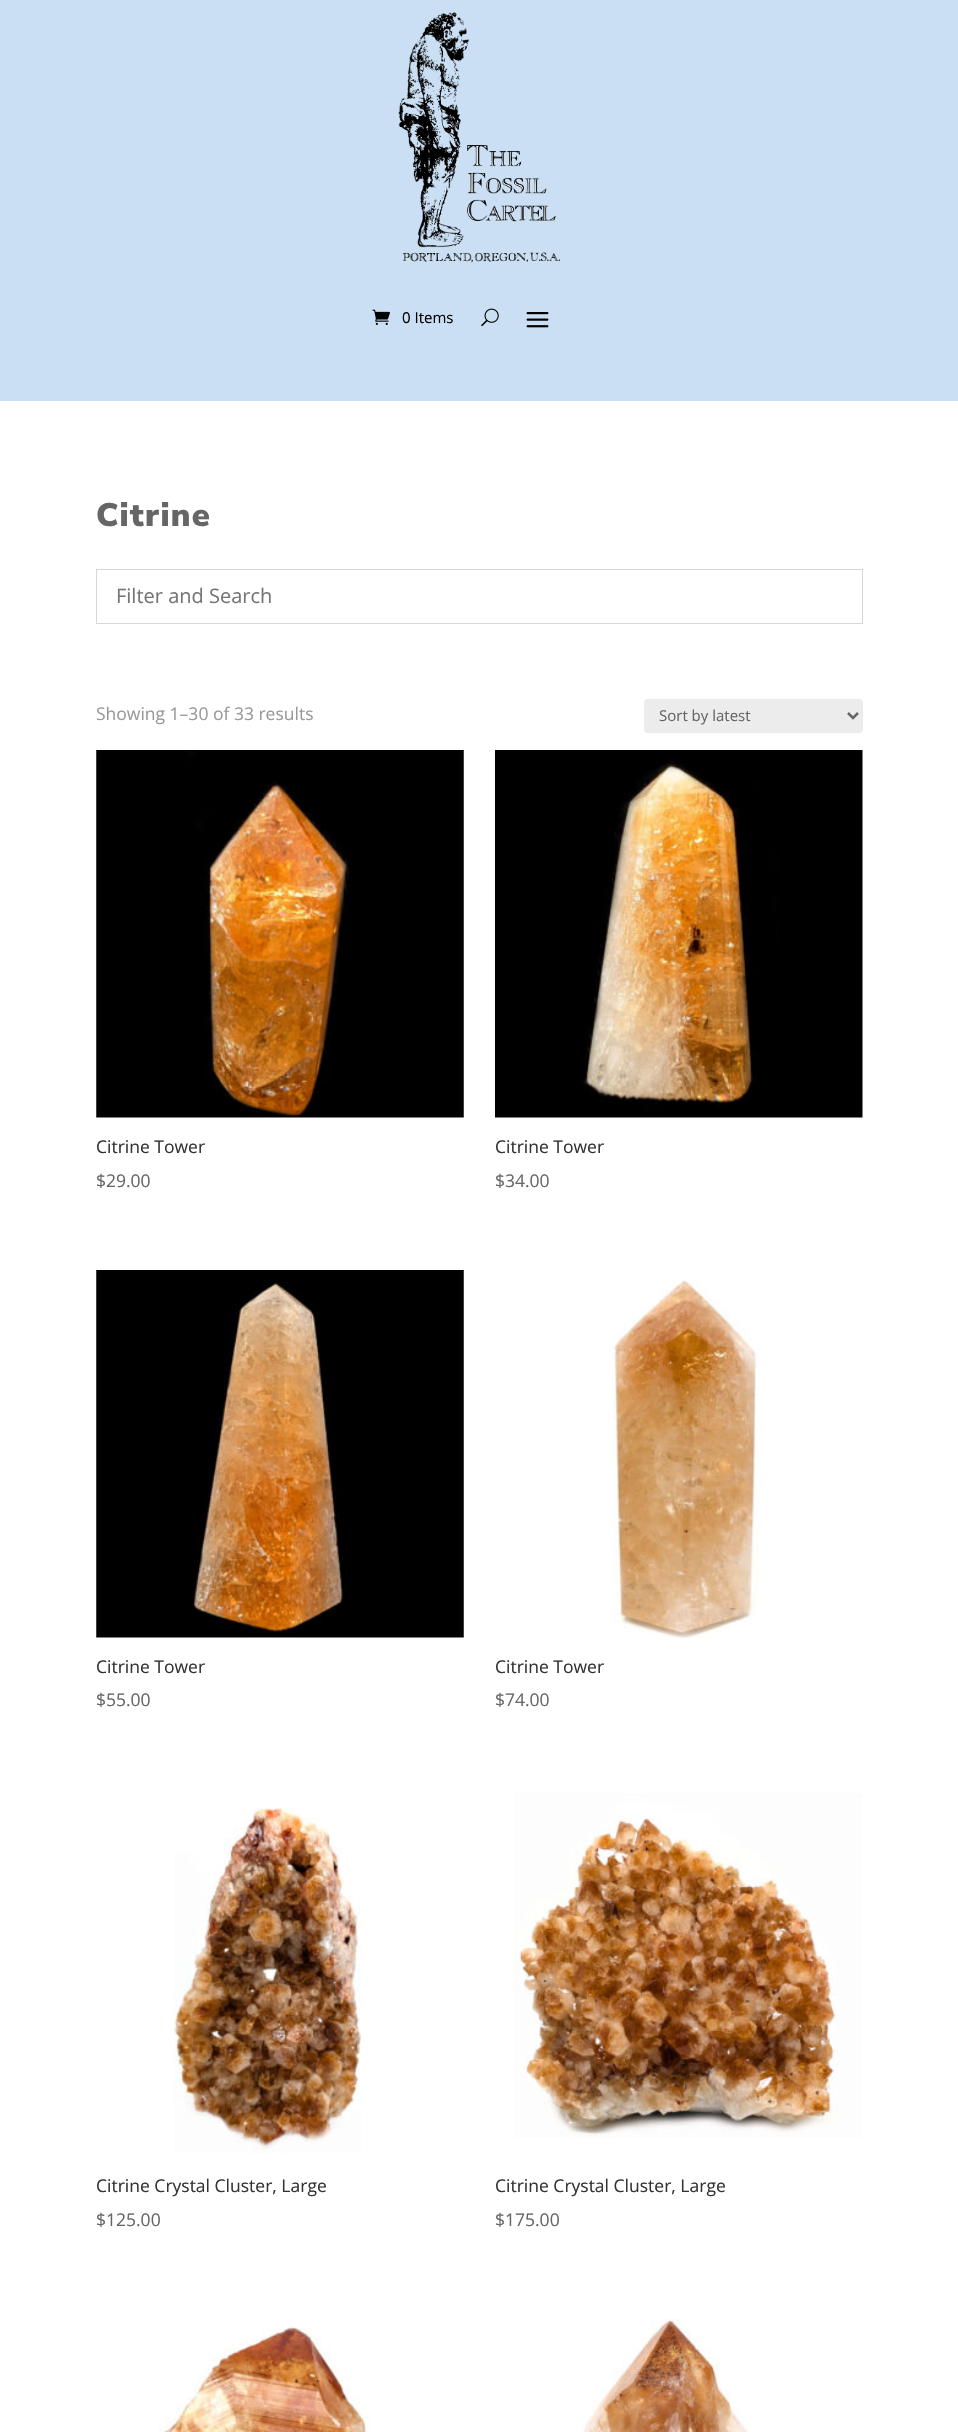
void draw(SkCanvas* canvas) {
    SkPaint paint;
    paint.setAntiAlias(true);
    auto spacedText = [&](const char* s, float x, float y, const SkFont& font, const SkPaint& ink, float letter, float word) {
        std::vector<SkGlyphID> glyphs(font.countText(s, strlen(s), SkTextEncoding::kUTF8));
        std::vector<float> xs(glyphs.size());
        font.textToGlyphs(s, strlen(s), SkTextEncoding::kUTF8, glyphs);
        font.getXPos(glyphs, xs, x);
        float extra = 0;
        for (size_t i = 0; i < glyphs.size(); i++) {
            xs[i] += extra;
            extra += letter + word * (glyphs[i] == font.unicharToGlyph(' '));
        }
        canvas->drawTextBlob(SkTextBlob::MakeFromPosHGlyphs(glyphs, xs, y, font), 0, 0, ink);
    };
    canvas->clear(0xFFFFFFFF);
    paint.setColor(0xFFCADFF3);
    canvas->drawRect(SkRect::MakeXYWH(0, 0, 958, 401), paint);
    canvas->drawImageRect(SkImages::DeferredFromEncodedData(SkData::MakeFromFileName("img1.png")), SkRect::MakeXYWH(398, 12, 162, 251), SkSamplingOptions());
    canvas->drawImageRect(SkImages::DeferredFromEncodedData(SkData::MakeFromFileName("img2.png")), SkRect::MakeXYWH(372, 309, 18, 16), SkSamplingOptions());
    SkFont font1(fontMgr->matchFamilyStyle("Open Sans", SkFontStyle::Normal()), 15);
    font1.setSubpixel(true);
    paint.setColor(0xFF000000);
    canvas->drawString("0 Items", 402, 323, font1, paint);
    canvas->drawImageRect(SkImages::DeferredFromEncodedData(SkData::MakeFromFileName("img3.png")), SkRect::MakeXYWH(481, 308, 18, 19), SkSamplingOptions());
    canvas->drawImageRect(SkImages::DeferredFromEncodedData(SkData::MakeFromFileName("img4.png")), SkRect::MakeXYWH(526, 312, 23, 16), SkSamplingOptions());
    SkFont font2(fontMgr->matchFamilyStyle("Nunito Sans", SkFontStyle(900, SkFontStyle::kNormal_Width, SkFontStyle::kUpright_Slant)), 32.5f);
    font2.setSubpixel(true);
    paint.setColor(0xFF666666);
    spacedText("Citrine", 96, 526, font2, paint, 1.25f, 0);
    paint.setStyle(SkPaint::kStroke_Style);
    paint.setStrokeWidth(1);
    paint.setColor(0xFFD8D8D8);
    canvas->drawRect(SkRect::MakeXYWH(96.5f, 569.5f, 766, 54), paint);
    SkFont font3(fontMgr->matchFamilyStyle("Open Sans", SkFontStyle::Normal()), 20);
    font3.setSubpixel(true);
    paint.setStyle(SkPaint::kFill_Style);
    paint.setColor(0xFF757575);
    canvas->drawString("Filter and Search", 116, 603, font3, paint);
    SkFont font4(fontMgr->matchFamilyStyle("Open Sans", SkFontStyle::Normal()), 17.5f);
    font4.setSubpixel(true);
    paint.setColor(0xFF999999);
    canvas->drawString("Showing 1–30 of 33 results", 96, 720, font4, paint);
    paint.setColor(0xFFECECEC);
    canvas->drawRoundRect(SkRect::MakeXYWH(644, 699, 219, 34), 4, 4, paint);
    paint.setStyle(SkPaint::kStroke_Style);
    paint.setStrokeWidth(2.5f);
    paint.setColor(0xFF666666);
    canvas->drawPath(SkPathBuilder().moveTo(848, 713).lineTo(853, 718).lineTo(858, 713).detach(), paint);
    paint.setStyle(SkPaint::kFill_Style);
    canvas->drawString("Sort by latest", 659, 721, font1, paint);
    canvas->drawImageRect(SkImages::DeferredFromEncodedData(SkData::MakeFromFileName("img5.png")), SkRect::MakeXYWH(96, 750, 368, 368), SkSamplingOptions());
    paint.setColor(0xFF333333);
    canvas->drawString("Citrine Tower", 96, 1153, font4, paint);
    paint.setColor(0xFF666666);
    canvas->drawString("$29.00", 96, 1187, font4, paint);
    canvas->drawImageRect(SkImages::DeferredFromEncodedData(SkData::MakeFromFileName("img6.png")), SkRect::MakeXYWH(495, 750, 368, 368), SkSamplingOptions());
    paint.setColor(0xFF333333);
    canvas->drawString("Citrine Tower", 495, 1153, font4, paint);
    paint.setColor(0xFF666666);
    canvas->drawString("$34.00", 495, 1187, font4, paint);
    canvas->drawImageRect(SkImages::DeferredFromEncodedData(SkData::MakeFromFileName("img7.png")), SkRect::MakeXYWH(96, 1270, 368, 368), SkSamplingOptions());
    paint.setColor(0xFF333333);
    canvas->drawString("Citrine Tower", 96, 1673, font4, paint);
    paint.setColor(0xFF666666);
    canvas->drawString("$55.00", 96, 1706, font4, paint);
    canvas->drawImageRect(SkImages::DeferredFromEncodedData(SkData::MakeFromFileName("img8.png")), SkRect::MakeXYWH(612, 1280, 147, 358), SkSamplingOptions());
    paint.setColor(0xFF333333);
    canvas->drawString("Citrine Tower", 495, 1673, font4, paint);
    paint.setColor(0xFF666666);
    canvas->drawString("$74.00", 495, 1706, font4, paint);
    canvas->drawImageRect(SkImages::DeferredFromEncodedData(SkData::MakeFromFileName("img9.png")), SkRect::MakeXYWH(174, 1808, 187, 345), SkSamplingOptions());
    paint.setColor(0xFF333333);
    canvas->drawString("Citrine Crystal Cluster, Large", 96, 2192, font4, paint);
    paint.setColor(0xFF666666);
    canvas->drawString("$125.00", 96, 2226, font4, paint);
    canvas->drawImageRect(SkImages::DeferredFromEncodedData(SkData::MakeFromFileName("img10.png")), SkRect::MakeXYWH(514, 1793, 348, 345), SkSamplingOptions());
    paint.setColor(0xFF333333);
    canvas->drawString("Citrine Crystal Cluster, Large", 495, 2192, font4, paint);
    paint.setColor(0xFF666666);
    canvas->drawString("$175.00", 495, 2226, font4, paint);
    canvas->drawImageRect(SkImages::DeferredFromEncodedData(SkData::MakeFromFileName("img11.png")), SkRect::MakeXYWH(158, 2326, 213, 106), SkSamplingOptions());
    canvas->drawImageRect(SkImages::DeferredFromEncodedData(SkData::MakeFromFileName("img12.png")), SkRect::MakeXYWH(583, 2319, 166, 113), SkSamplingOptions());
}
